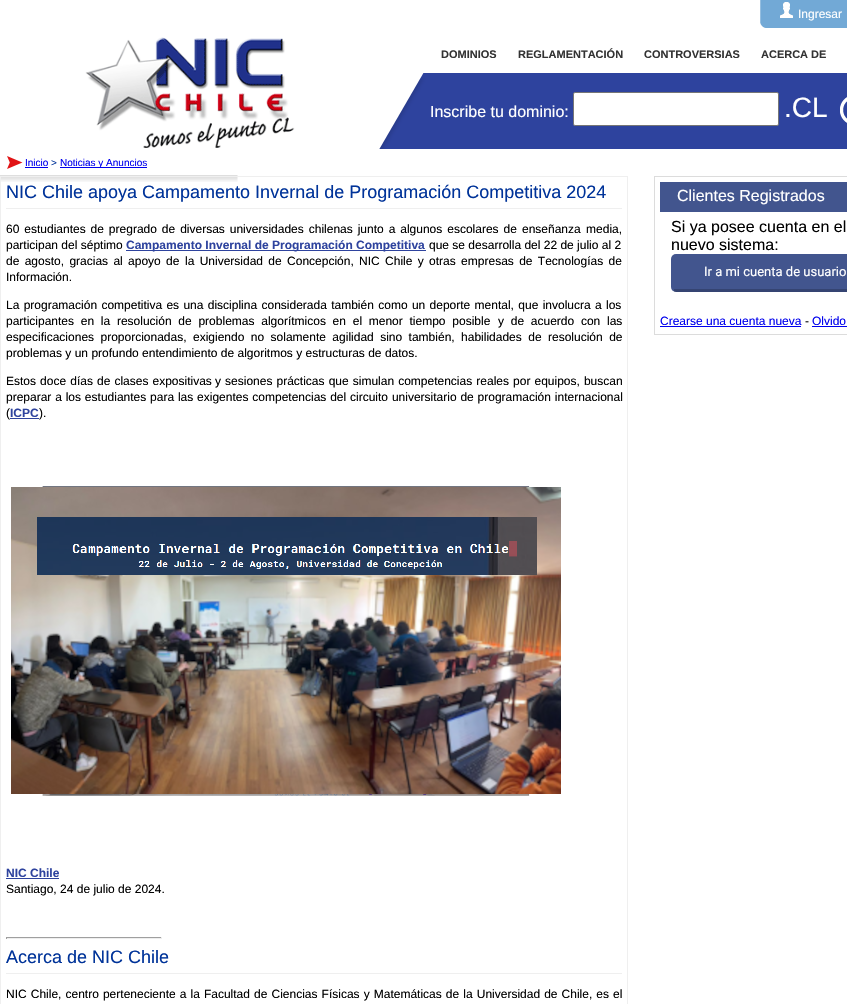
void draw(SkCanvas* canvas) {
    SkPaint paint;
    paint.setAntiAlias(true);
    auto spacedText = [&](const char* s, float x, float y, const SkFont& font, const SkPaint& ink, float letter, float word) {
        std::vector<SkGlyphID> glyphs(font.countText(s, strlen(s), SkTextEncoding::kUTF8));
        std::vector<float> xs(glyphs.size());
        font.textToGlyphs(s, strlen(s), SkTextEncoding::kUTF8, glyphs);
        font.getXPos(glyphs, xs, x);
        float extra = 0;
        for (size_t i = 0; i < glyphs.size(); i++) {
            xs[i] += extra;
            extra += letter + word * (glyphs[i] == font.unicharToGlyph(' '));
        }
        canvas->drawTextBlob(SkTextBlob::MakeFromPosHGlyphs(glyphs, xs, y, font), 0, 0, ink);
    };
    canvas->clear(0xFFFFFFFF);
    canvas->drawImageRect(SkImages::DeferredFromEncodedData(SkData::MakeFromFileName("img1.png")), SkRect::MakeXYWH(0, 73, 847, 109), SkSamplingOptions());
    canvas->drawImageRect(SkImages::DeferredFromEncodedData(SkData::MakeFromFileName("img2.png")), SkRect::MakeXYWH(379, 73, 57, 76), SkSamplingOptions());
    canvas->drawImageRect(SkImages::DeferredFromEncodedData(SkData::MakeFromFileName("img3.png")), SkRect::MakeXYWH(85, 37, 210, 111), SkSamplingOptions());
    canvas->drawImageRect(SkImages::DeferredFromEncodedData(SkData::MakeFromFileName("img4.png")), SkRect::MakeXYWH(760, 0, 87, 28), SkSamplingOptions());
    canvas->drawImageRect(SkImages::DeferredFromEncodedData(SkData::MakeFromFileName("img5.png")), SkRect::MakeXYWH(780, 2, 13, 16), SkSamplingOptions());
    SkFont font1(fontMgr->matchFamilyStyle("Liberation Sans", SkFontStyle::Normal()), 12);
    font1.setSubpixel(true);
    paint.setColor(0xFFFFFFFF);
    canvas->drawString("Ingresar", 798, 18, font1, paint);
    SkFont font2(fontMgr->matchFamilyStyle("Liberation Sans", SkFontStyle::Bold()), 11);
    font2.setSubpixel(true);
    paint.setColor(0xFF333333);
    canvas->drawString("DOMINIOS", 441, 58, font2, paint);
    canvas->drawString("REGLAMENTACIÓN", 518, 58, font2, paint);
    canvas->drawString("CONTROVERSIAS", 644, 58, font2, paint);
    canvas->drawString("ACERCA DE", 761, 58, font2, paint);
    SkFont font3(fontMgr->matchFamilyStyle("Liberation Sans", SkFontStyle::Normal()), 16);
    font3.setSubpixel(true);
    paint.setColor(0xFFFFFFFF);
    canvas->drawString("Inscribe tu dominio:", 430, 117, font3, paint);
    canvas->drawRoundRect(SkRect::MakeXYWH(573.5f, 92.5f, 205, 33), 1.5f, 1.5f, paint);
    paint.setStyle(SkPaint::kStroke_Style);
    paint.setStrokeWidth(1);
    paint.setColor(0xFF767676);
    canvas->drawRoundRect(SkRect::MakeXYWH(573.5f, 92.5f, 205, 33), 1.5f, 1.5f, paint);
    SkFont font4(fontMgr->matchFamilyStyle("Liberation Sans", SkFontStyle::Normal()), 28);
    font4.setSubpixel(true);
    paint.setStyle(SkPaint::kFill_Style);
    paint.setColor(0xFFFFFFFF);
    canvas->drawString(".CL", 784, 117, font4, paint);
    canvas->drawImageRect(SkImages::DeferredFromEncodedData(SkData::MakeFromFileName("img6.png")), SkRect::MakeXYWH(840, 95, 7, 30), SkSamplingOptions());
    canvas->drawImageRect(SkImages::DeferredFromEncodedData(SkData::MakeFromFileName("img7.png")), SkRect::MakeXYWH(7, 156, 16, 13), SkSamplingOptions());
    SkFont font5(fontMgr->matchFamilyStyle("Liberation Sans", SkFontStyle::Normal()), 10);
    font5.setSubpixel(true);
    paint.setColor(0xFF0000EE);
    canvas->drawString("Inicio", 25, 166, font5, paint);
    canvas->drawRect(SkRect::MakeXYWH(25, 167, 23, 1), paint);
    paint.setColor(0xFF003399);
    canvas->drawString(">", 51, 166, font5, paint);
    paint.setColor(0xFF0000EE);
    canvas->drawRect(SkRect::MakeXYWH(60, 167, 87, 1), paint);
    canvas->drawString("Noticias y Anuncios", 60, 166, font5, paint);
    paint.setStyle(SkPaint::kStroke_Style);
    paint.setColor(0xFFEFEFEF);
    canvas->drawRect(SkRect::MakeXYWH(0.5f, 176.5f, 627, 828), paint);
    paint.setStyle(SkPaint::kFill_Style);
    canvas->drawRect(SkRect::MakeXYWH(6, 208, 616, 1), paint);
    SkFont font6(fontMgr->matchFamilyStyle("Liberation Sans", SkFontStyle::Normal()), 18);
    font6.setSubpixel(true);
    paint.setColor(0xFF003399);
    canvas->drawString("NIC Chile apoya Campamento Invernal de Programación Competitiva 2024", 6, 198, font6, paint);
    paint.setColor(0xFF000000);
    spacedText("60 estudiantes de pregrado de diversas universidades chilenas junto a algunos escolares de", 6, 233, font1, paint, 0, 1.6f);
    spacedText("enseñanza media,", 522, 233, font1, paint, 0, 2);
    canvas->drawString("participan del séptimo", 6, 249, font1, paint);
    paint.setColor(0xFF2E439E);
    canvas->drawRect(SkRect::MakeXYWH(126, 250, 300, 1), paint);
    SkFont font7(fontMgr->matchFamilyStyle("Liberation Sans", SkFontStyle::Bold()), 12);
    font7.setSubpixel(true);
    canvas->drawString("Campamento Invernal de Programación Competitiva", 126, 249, font7, paint);
    paint.setColor(0xFF000000);
    canvas->drawString("que se desarrolla del 22 de julio al 2", 429, 249, font1, paint);
    spacedText("de agosto, gracias al apoyo de", 6, 265, font1, paint, 0, 2);
    spacedText("la Universidad de Concepción, NIC Chile y otras empresas de Tecnologías de", 185, 265, font1, paint, 0, 2);
    canvas->drawString("Información.", 6, 281, font1, paint);
    spacedText("La programación competitiva es una disciplina considerada también como un deporte mental, que involucra a los", 6, 309, font1, paint, 0, 1);
    spacedText("participantes en la resolución de problemas algorítmicos en el menor tiempo posible", 6, 325, font1, paint, 0, 3.4f);
    spacedText("y de acuerdo con las", 498, 325, font1, paint, 0, 3.4f);
    spacedText("especificaciones proporcionadas, exigiendo no solamente agilidad sino también, habilidades de resolución de", 6, 341, font1, paint, 0, 3.1f);
    canvas->drawString("problemas y un profundo entendimiento de algoritmos y estructuras de datos.", 6, 357, font1, paint);
    spacedText("Estos doce días de clases expositivas", 6, 385, font1, paint, 0, 0.75f);
    spacedText("y sesiones prácticas que simulan competencias reales por equipos, buscan", 215, 385, font1, paint, 0, 0.75f);
    spacedText("preparar a los estudiantes para las exigentes competencias del circuito universitario de programación internacional", 6, 401, font1, paint, 0, 0.5f);
    canvas->drawString("(", 6, 417, font1, paint);
    paint.setColor(0xFF2E439E);
    canvas->drawString("ICPC", 10, 417, font7, paint);
    canvas->drawRect(SkRect::MakeXYWH(10, 418, 29, 1), paint);
    paint.setColor(0xFF000000);
    canvas->drawString(").", 39, 417, font1, paint);
    canvas->drawImageRect(SkImages::DeferredFromEncodedData(SkData::MakeFromFileName("img8.png")), SkRect::MakeXYWH(11, 486, 550, 310), SkSamplingOptions());
    paint.setColor(0xFF2E439E);
    canvas->drawString("NIC Chile", 6, 877, font7, paint);
    canvas->drawRect(SkRect::MakeXYWH(6, 878, 53, 1), paint);
    paint.setColor(0xFF000000);
    canvas->drawString("Santiago, 24 de julio de 2024.", 6, 893, font1, paint);
    paint.setColor(0xFF9F9F9F);
    canvas->drawRect(SkRect::MakeXYWH(6, 937, 156, 1), paint);
    paint.setColor(0xFFEEEEEE);
    canvas->drawRect(SkRect::MakeXYWH(161, 937, 1, 2), paint);
    canvas->drawRect(SkRect::MakeXYWH(6, 938, 156, 1), paint);
    paint.setColor(0xFF9F9F9F);
    canvas->drawRect(SkRect::MakeXYWH(6, 937, 1, 2), paint);
    paint.setColor(0xFFEFEFEF);
    canvas->drawRect(SkRect::MakeXYWH(6, 973, 616, 1), paint);
    paint.setColor(0xFF003399);
    canvas->drawString("Acerca de NIC Chile", 6, 963, font6, paint);
    paint.setColor(0xFF000000);
    spacedText("NIC Chile, centro perteneciente a la Facultad de Ciencias Físicas y Matemáticas de la Universidad de Chile, es el", 6, 998, font1, paint, 0, 0.75f);
    paint.setStyle(SkPaint::kStroke_Style);
    paint.setColor(0xFFDCDCDC);
    canvas->drawRect(SkRect::MakeXYWH(654.5f, 176.5f, 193, 158), paint);
    paint.setStyle(SkPaint::kFill_Style);
    paint.setColor(0xFF42558E);
    canvas->drawRect(SkRect::MakeXYWH(660, 182, 187, 30), paint);
    paint.setColor(0xFFFFFFFF);
    canvas->drawString("Clientes Registrados", 677, 201, font3, paint);
    paint.setColor(0xFF000000);
    canvas->drawString("Si ya posee cuenta en el", 671, 232, font3, paint);
    canvas->drawString("nuevo sistema:", 671, 250, font3, paint);
    paint.setColor(0xFF42558E);
    canvas->drawRoundRect(SkRect::MakeXYWH(671, 254, 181, 38), 5, 5, paint);
    paint.setColor(0x33000000);
    canvas->drawRect(SkRect::MakeXYWH(674, 289, 173, 3), paint);
    SkFont font8(fontMgr->matchFamilyStyle("Roboto", SkFontStyle::Normal()), 13);
    font8.setSubpixel(true);
    paint.setColor(0xFFFFFFFF);
    canvas->drawString("Ir a mi cuenta de usuario", 704, 276, font8, paint);
    paint.setColor(0xFF0000EE);
    canvas->drawString("Crearse una cuenta nueva", 660, 325, font1, paint);
    canvas->drawRect(SkRect::MakeXYWH(660, 326, 141, 1), paint);
    paint.setColor(0xFF000000);
    canvas->drawString("-", 805, 325, font1, paint);
    paint.setColor(0xFF0000EE);
    canvas->drawString("Olvido", 812, 325, font1, paint);
    canvas->drawRect(SkRect::MakeXYWH(812, 326, 35, 1), paint);
}
